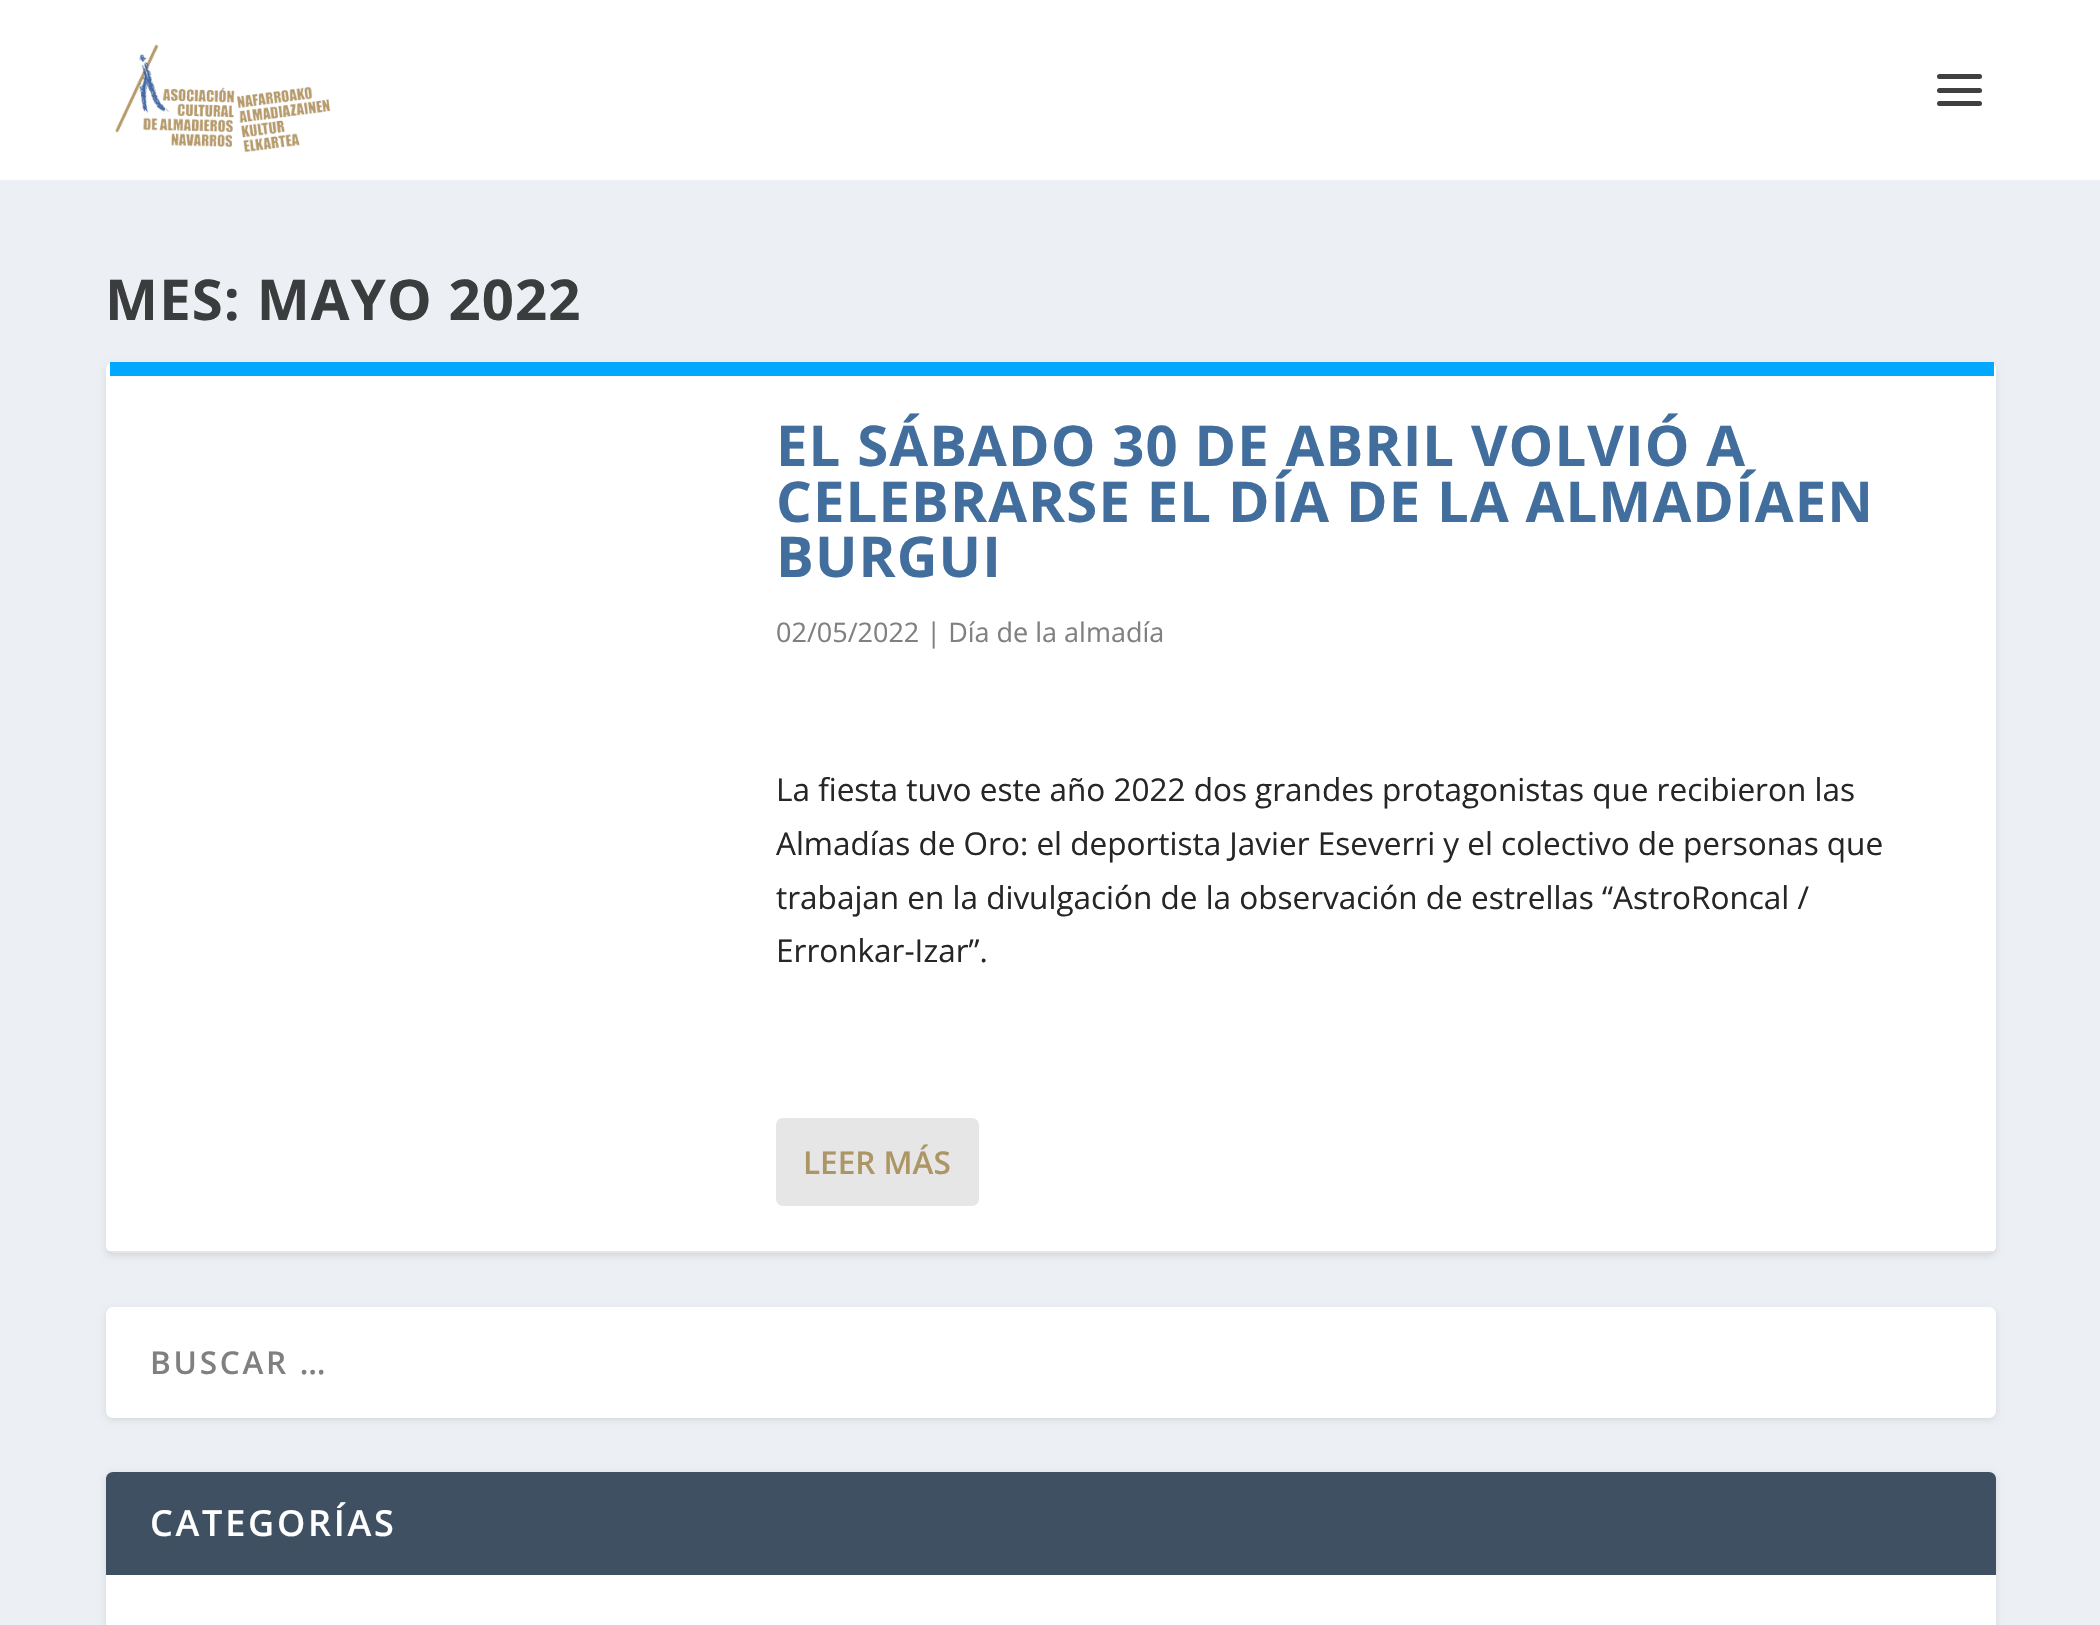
void draw(SkCanvas* canvas) {
    SkPaint paint;
    paint.setAntiAlias(true);
    auto spacedText = [&](const char* s, float x, float y, const SkFont& font, const SkPaint& ink, float letter, float word) {
        std::vector<SkGlyphID> glyphs(font.countText(s, strlen(s), SkTextEncoding::kUTF8));
        std::vector<float> xs(glyphs.size());
        font.textToGlyphs(s, strlen(s), SkTextEncoding::kUTF8, glyphs);
        font.getXPos(glyphs, xs, x);
        float extra = 0;
        for (size_t i = 0; i < glyphs.size(); i++) {
            xs[i] += extra;
            extra += letter + word * (glyphs[i] == font.unicharToGlyph(' '));
        }
        canvas->drawTextBlob(SkTextBlob::MakeFromPosHGlyphs(glyphs, xs, y, font), 0, 0, ink);
    };
    canvas->clear(0xFFECF0F5);
    paint.setColor(0xFFFFFFFF);
    canvas->drawRect(SkRect::MakeXYWH(0, 0, 2100, 180), paint);
    canvas->drawImageRect(SkImages::DeferredFromEncodedData(SkData::MakeFromFileName("img1.png")), SkRect::MakeXYWH(115, 44, 216, 109), SkSamplingOptions());
    paint.setColor(0xFF404040);
    canvas->drawRoundRect(SkRect::MakeXYWH(1937, 74, 45, 5), 2.5f, 2.5f, paint);
    canvas->drawRoundRect(SkRect::MakeXYWH(1937, 88, 45, 5), 2.5f, 2.5f, paint);
    canvas->drawRoundRect(SkRect::MakeXYWH(1937, 101, 45, 5), 2.5f, 2.5f, paint);
    SkFont font1(fontMgr->matchFamilyStyle("Open Sans", SkFontStyle::Bold()), 56.25f);
    font1.setSubpixel(true);
    paint.setColor(0xFF3B3C3D);
    spacedText("MES: MAYO 2022", 105, 320, font1, paint, 1.1f, 0);
    paint.setColor(0x1A000000);
    paint.setMaskFilter(SkMaskFilter::MakeBlur(kNormal_SkBlurStyle, 3.5f));
    canvas->drawRoundRect(SkRect::MakeXYWH(106, 365, 1890, 891), 7, 7, paint);
    paint.setMaskFilter(nullptr);
    paint.setColor(0xFFFFFFFF);
    canvas->drawRoundRect(SkRect::MakeXYWH(106, 362, 1890, 891), 7, 7, paint);
    paint.setColor(0xFF00A8FF);
    canvas->drawRect(SkRect::MakeXYWH(110, 362, 1884, 14), paint);
    paint.setColor(0x1A000000);
    canvas->drawPath(SkPathBuilder().moveTo(111, 1253).lineTo(107, 1251).lineTo(1994, 1251).lineTo(1991, 1253).close().detach(), paint);
    paint.setColor(0xFF426E9D);
    spacedText("EL SÁBADO 30 DE ABRIL VOLVIÓ A", 776, 466, font1, paint, 1.1f, 0);
    spacedText("CELEBRARSE EL DÍA DE LA ALMADÍAEN", 776, 522, font1, paint, 1.1f, 0);
    spacedText("BURGUI", 776, 577, font1, paint, 1.1f, 0);
    SkFont font2(fontMgr->matchFamilyStyle("Open Sans", SkFontStyle::Normal()), 27);
    font2.setSubpixel(true);
    paint.setColor(0xFF808080);
    canvas->drawString("02/05/2022 | Día de la almadía", 776, 642, font2, paint);
    SkFont font3(fontMgr->matchFamilyStyle("Open Sans", SkFontStyle::Normal()), 31.5f);
    font3.setSubpixel(true);
    paint.setColor(0xFF262626);
    canvas->drawString("La fiesta tuvo este año 2022 dos grandes protagonistas que recibieron las", 776, 801, font3, paint);
    canvas->drawString("Almadías de Oro: el deportista Javier Eseverri y el colectivo de personas que", 776, 855, font3, paint);
    canvas->drawString("trabajan en la divulgación de la observación de estrellas “AstroRoncal /", 776, 909, font3, paint);
    canvas->drawString("Erronkar-Izar”.", 776, 962, font3, paint);
    paint.setColor(0xFFE6E6E6);
    canvas->drawRoundRect(SkRect::MakeXYWH(776, 1118, 203, 88), 7, 7, paint);
    SkFont font4(fontMgr->matchFamilyStyle("Open Sans", SkFontStyle(600, SkFontStyle::kNormal_Width, SkFontStyle::kUpright_Slant)), 31.5f);
    font4.setSubpixel(true);
    paint.setColor(0xFFAC9665);
    canvas->drawString("LEER MÁS", 803, 1174, font4, paint);
    paint.setColor(0x1A000000);
    paint.setMaskFilter(SkMaskFilter::MakeBlur(kNormal_SkBlurStyle, 3.5f));
    canvas->drawRoundRect(SkRect::MakeXYWH(106, 1310, 1890, 110), 7, 7, paint);
    paint.setMaskFilter(nullptr);
    paint.setColor(0xFFFFFFFF);
    canvas->drawRoundRect(SkRect::MakeXYWH(106, 1307, 1890, 111), 7, 7, paint);
    paint.setColor(0xFF808080);
    spacedText("BUSCAR …", 150, 1374, font4, paint, 2.75f, 0);
    paint.setColor(0x1A000000);
    paint.setMaskFilter(SkMaskFilter::MakeBlur(kNormal_SkBlurStyle, 3.5f));
    canvas->drawRoundRect(SkRect::MakeXYWH(106, 1474, 1890, 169), 7, 7, paint);
    paint.setMaskFilter(nullptr);
    paint.setColor(0xFFFFFFFF);
    canvas->drawRoundRect(SkRect::MakeXYWH(106, 1472, 1890, 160), 7, 7, paint);
    paint.setColor(0xFF3E5062);
    canvas->drawPath(SkPathBuilder().moveTo(113, 1472).lineTo(1989, 1472).cubicTo(1993, 1472, 1996, 1475, 1996, 1479).lineTo(1996, 1575).lineTo(106, 1575).lineTo(106, 1479).cubicTo(106, 1475, 109, 1472, 113, 1472).close().detach(), paint);
    SkFont font5(fontMgr->matchFamilyStyle("Open Sans", SkFontStyle(600, SkFontStyle::kNormal_Width, SkFontStyle::kUpright_Slant)), 36);
    font5.setSubpixel(true);
    paint.setColor(0xFFFFFFFF);
    spacedText("CATEGORÍAS", 150, 1536, font5, paint, 2.75f, 0);
}
